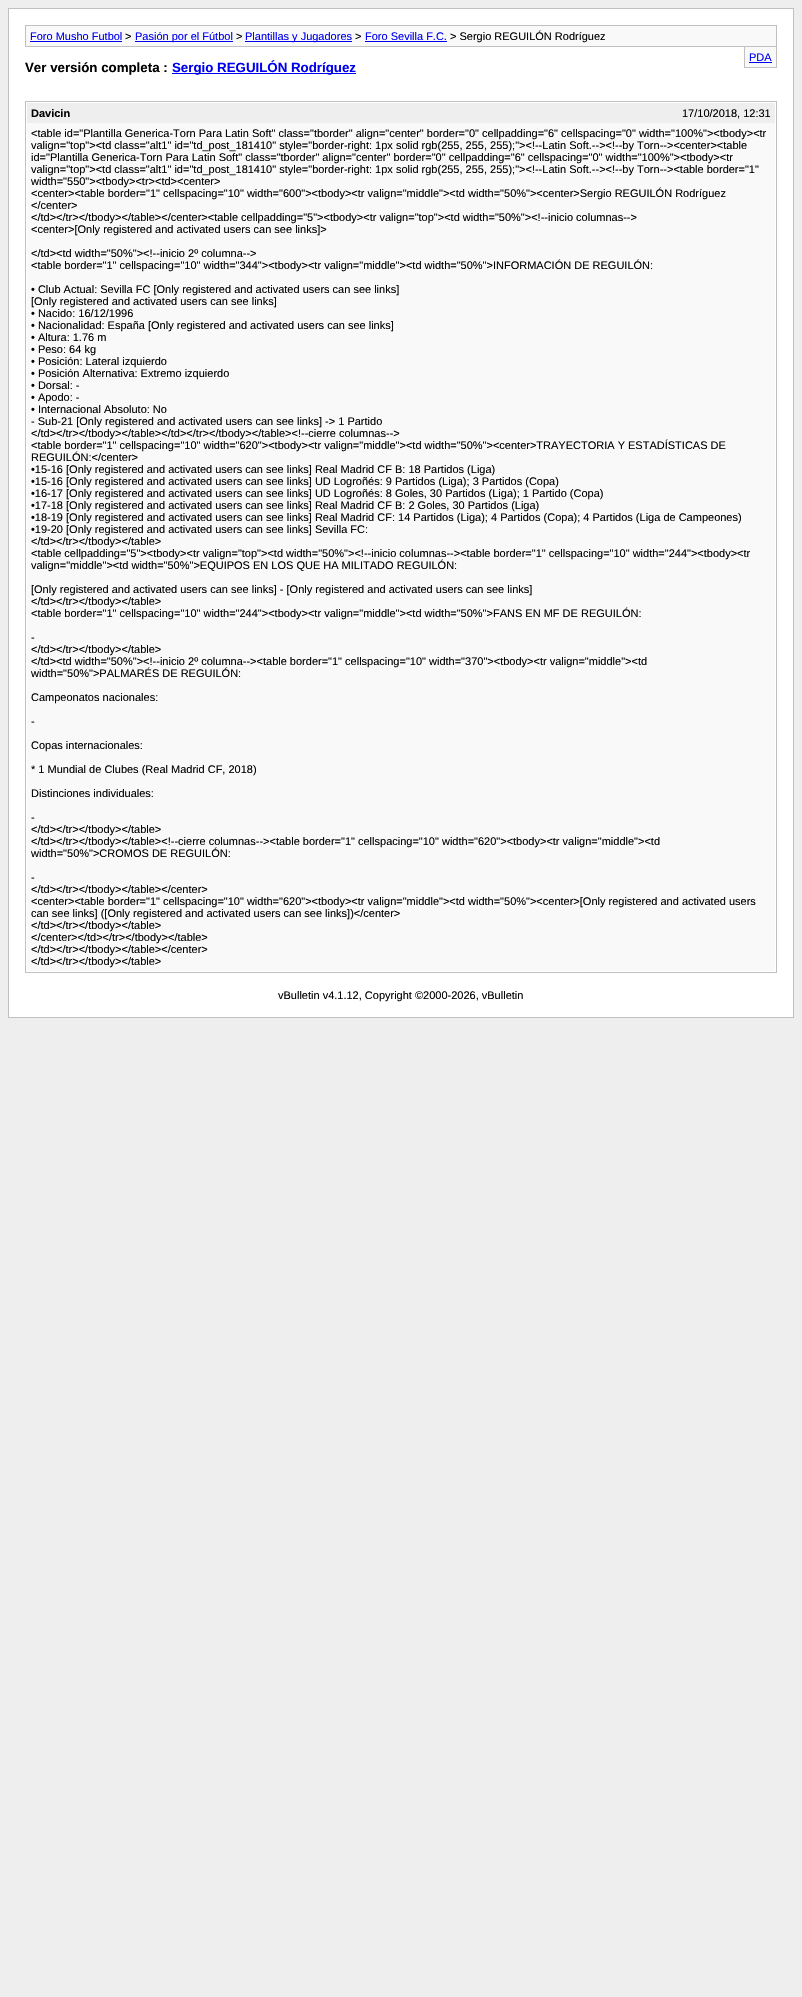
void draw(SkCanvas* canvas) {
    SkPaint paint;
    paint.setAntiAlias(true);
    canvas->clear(0xFFEEEEEE);
    paint.setColor(0xFFFFFFFF);
    canvas->drawRect(SkRect::MakeXYWH(8.5f, 8.5f, 785, 1009), paint);
    paint.setStyle(SkPaint::kStroke_Style);
    paint.setStrokeWidth(1);
    paint.setColor(0xFFC0C0C0);
    canvas->drawRect(SkRect::MakeXYWH(8.5f, 8.5f, 785, 1009), paint);
    paint.setStyle(SkPaint::kFill_Style);
    paint.setColor(0xFFF9F9F9);
    canvas->drawRect(SkRect::MakeXYWH(25.5f, 25.5f, 751, 21), paint);
    paint.setStyle(SkPaint::kStroke_Style);
    paint.setColor(0xFFC0C0C0);
    canvas->drawRect(SkRect::MakeXYWH(25.5f, 25.5f, 751, 21), paint);
    SkFont font1(fontMgr->matchFamilyStyle("Liberation Sans", SkFontStyle::Normal()), 11);
    font1.setSubpixel(true);
    paint.setStyle(SkPaint::kFill_Style);
    paint.setColor(0xFF0000EE);
    canvas->drawString("Foro Musho Futbol", 30, 40, font1, paint);
    canvas->drawRect(SkRect::MakeXYWH(30, 41, 92, 1), paint);
    paint.setColor(0xFF000000);
    canvas->drawString(">", 125, 40, font1, paint);
    paint.setColor(0xFF0000EE);
    canvas->drawRect(SkRect::MakeXYWH(135, 41, 98, 1), paint);
    canvas->drawString("Pasión por el Fútbol", 135, 40, font1, paint);
    paint.setColor(0xFF000000);
    canvas->drawString(">", 236, 40, font1, paint);
    paint.setColor(0xFF0000EE);
    canvas->drawRect(SkRect::MakeXYWH(245, 41, 107, 1), paint);
    canvas->drawString("Plantillas y Jugadores", 245, 40, font1, paint);
    paint.setColor(0xFF000000);
    canvas->drawString(">", 355, 40, font1, paint);
    paint.setColor(0xFF0000EE);
    canvas->drawString("Foro Sevilla F.C.", 365, 40, font1, paint);
    canvas->drawRect(SkRect::MakeXYWH(365, 41, 82, 1), paint);
    paint.setColor(0xFF000000);
    canvas->drawString("> Sergio REGUILÓN Rodríguez", 450, 40, font1, paint);
    paint.setColor(0xFFF9F9F9);
    canvas->drawRect(SkRect::MakeXYWH(745, 47, 31, 20), paint);
    paint.setColor(0xFFC0C0C0);
    canvas->drawRect(SkRect::MakeXYWH(776, 47, 1, 21), paint);
    canvas->drawRect(SkRect::MakeXYWH(744, 67, 33, 1), paint);
    canvas->drawRect(SkRect::MakeXYWH(744, 47, 1, 21), paint);
    paint.setColor(0xFF0000EE);
    canvas->drawString("PDA", 749, 61, font1, paint);
    canvas->drawRect(SkRect::MakeXYWH(749, 62, 23, 1), paint);
    SkFont font2(fontMgr->matchFamilyStyle("Liberation Sans", SkFontStyle::Bold()), 13.3f);
    font2.setSubpixel(true);
    paint.setColor(0xFF000000);
    canvas->drawString("Ver versión completa :", 25, 72, font2, paint);
    paint.setColor(0xFF0000EE);
    canvas->drawRect(SkRect::MakeXYWH(172, 73, 184, 1), paint);
    canvas->drawString("Sergio REGUILÓN Rodríguez", 172, 72, font2, paint);
    paint.setStyle(SkPaint::kStroke_Style);
    paint.setColor(0xFFC0C0C0);
    canvas->drawRect(SkRect::MakeXYWH(25.5f, 101.5f, 751, 871), paint);
    paint.setStyle(SkPaint::kFill_Style);
    paint.setColor(0xFFEEEEEE);
    canvas->drawRect(SkRect::MakeXYWH(27, 103, 748, 20), paint);
    SkFont font3(fontMgr->matchFamilyStyle("Liberation Sans", SkFontStyle::Bold()), 11);
    font3.setSubpixel(true);
    paint.setColor(0xFF000000);
    canvas->drawString("Davicin", 31, 117, font3, paint);
    canvas->drawString("17/10/2018, 12:31", 682, 117, font1, paint);
    paint.setColor(0xFFF9F9F9);
    canvas->drawRect(SkRect::MakeXYWH(27, 123, 748, 848), paint);
    paint.setColor(0xFF000000);
    canvas->drawString("<table id=\"Plantilla Generica-Torn Para Latin Soft\" class=\"tborder\" align=\"center\" border=\"0\" cellpadding=\"6\" cellspacing=\"0\" width=\"100%\"><tbody><tr", 31, 137, font1, paint);
    canvas->drawString("valign=\"top\"><td class=\"alt1\" id=\"td_post_181410\" style=\"border-right: 1px solid rgb(255, 255, 255);\"><!--Latin Soft.--><!--by Torn--><center><table", 31, 149, font1, paint);
    canvas->drawString("id=\"Plantilla Generica-Torn Para Latin Soft\" class=\"tborder\" align=\"center\" border=\"0\" cellpadding=\"6\" cellspacing=\"0\" width=\"100%\"><tbody><tr", 31, 161, font1, paint);
    canvas->drawString("valign=\"top\"><td class=\"alt1\" id=\"td_post_181410\" style=\"border-right: 1px solid rgb(255, 255, 255);\"><!--Latin Soft.--><!--by Torn--><table border=\"1\"", 31, 173, font1, paint);
    canvas->drawString("width=\"550\"><tbody><tr><td><center>", 31, 185, font1, paint);
    canvas->drawString("<center><table border=\"1\" cellspacing=\"10\" width=\"600\"><tbody><tr valign=\"middle\"><td width=\"50%\"><center>Sergio REGUILÓN Rodríguez", 31, 197, font1, paint);
    canvas->drawString("</center>", 31, 209, font1, paint);
    canvas->drawString("</td></tr></tbody></table></center><table cellpadding=\"5\"><tbody><tr valign=\"top\"><td width=\"50%\"><!--inicio columnas-->", 31, 221, font1, paint);
    canvas->drawString("<center>[Only registered and activated users can see links]>", 31, 233, font1, paint);
    canvas->drawString("</td><td width=\"50%\"><!--inicio 2º columna-->", 31, 257, font1, paint);
    canvas->drawString("<table border=\"1\" cellspacing=\"10\" width=\"344\"><tbody><tr valign=\"middle\"><td width=\"50%\">INFORMACIÓN DE REGUILÓN:", 31, 269, font1, paint);
    canvas->drawString("• Club Actual: Sevilla FC [Only registered and activated users can see links]", 31, 293, font1, paint);
    canvas->drawString("[Only registered and activated users can see links]", 31, 305, font1, paint);
    canvas->drawString("• Nacido: 16/12/1996", 31, 317, font1, paint);
    canvas->drawString("• Nacionalidad: España [Only registered and activated users can see links]", 31, 329, font1, paint);
    canvas->drawString("• Altura: 1.76 m", 31, 341, font1, paint);
    canvas->drawString("• Peso: 64 kg", 31, 353, font1, paint);
    canvas->drawString("• Posición: Lateral izquierdo", 31, 365, font1, paint);
    canvas->drawString("• Posición Alternativa: Extremo izquierdo", 31, 377, font1, paint);
    canvas->drawString("• Dorsal: -", 31, 389, font1, paint);
    canvas->drawString("• Apodo: -", 31, 401, font1, paint);
    canvas->drawString("• Internacional Absoluto: No", 31, 413, font1, paint);
    canvas->drawString("- Sub-21 [Only registered and activated users can see links] -> 1 Partido", 31, 425, font1, paint);
    canvas->drawString("</td></tr></tbody></table></td></tr></tbody></table><!--cierre columnas-->", 31, 437, font1, paint);
    canvas->drawString("<table border=\"1\" cellspacing=\"10\" width=\"620\"><tbody><tr valign=\"middle\"><td width=\"50%\"><center>TRAYECTORIA Y ESTADÍSTICAS DE", 31, 449, font1, paint);
    canvas->drawString("REGUILÓN:</center>", 31, 461, font1, paint);
    canvas->drawString("•15-16 [Only registered and activated users can see links] Real Madrid CF B: 18 Partidos (Liga)", 31, 473, font1, paint);
    canvas->drawString("•15-16 [Only registered and activated users can see links] UD Logroñés: 9 Partidos (Liga); 3 Partidos (Copa)", 31, 485, font1, paint);
    canvas->drawString("•16-17 [Only registered and activated users can see links] UD Logroñés: 8 Goles, 30 Partidos (Liga); 1 Partido (Copa)", 31, 497, font1, paint);
    canvas->drawString("•17-18 [Only registered and activated users can see links] Real Madrid CF B: 2 Goles, 30 Partidos (Liga)", 31, 509, font1, paint);
    canvas->drawString("•18-19 [Only registered and activated users can see links] Real Madrid CF: 14 Partidos (Liga); 4 Partidos (Copa); 4 Partidos (Liga de Campeones)", 31, 521, font1, paint);
    canvas->drawString("•19-20 [Only registered and activated users can see links] Sevilla FC:", 31, 533, font1, paint);
    canvas->drawString("</td></tr></tbody></table>", 31, 545, font1, paint);
    canvas->drawString("<table cellpadding=\"5\"><tbody><tr valign=\"top\"><td width=\"50%\"><!--inicio columnas--><table border=\"1\" cellspacing=\"10\" width=\"244\"><tbody><tr", 31, 557, font1, paint);
    canvas->drawString("valign=\"middle\"><td width=\"50%\">EQUIPOS EN LOS QUE HA MILITADO REGUILÓN:", 31, 569, font1, paint);
    canvas->drawString("[Only registered and activated users can see links] - [Only registered and activated users can see links]", 31, 593, font1, paint);
    canvas->drawString("</td></tr></tbody></table>", 31, 605, font1, paint);
    canvas->drawString("<table border=\"1\" cellspacing=\"10\" width=\"244\"><tbody><tr valign=\"middle\"><td width=\"50%\">FANS EN MF DE REGUILÓN:", 31, 617, font1, paint);
    canvas->drawString("-", 31, 641, font1, paint);
    canvas->drawString("</td></tr></tbody></table>", 31, 653, font1, paint);
    canvas->drawString("</td><td width=\"50%\"><!--inicio 2º columna--><table border=\"1\" cellspacing=\"10\" width=\"370\"><tbody><tr valign=\"middle\"><td", 31, 665, font1, paint);
    canvas->drawString("width=\"50%\">PALMARÉS DE REGUILÓN:", 31, 677, font1, paint);
    canvas->drawString("Campeonatos nacionales:", 31, 701, font1, paint);
    canvas->drawString("-", 31, 725, font1, paint);
    canvas->drawString("Copas internacionales:", 31, 749, font1, paint);
    canvas->drawString("* 1 Mundial de Clubes (Real Madrid CF, 2018)", 31, 773, font1, paint);
    canvas->drawString("Distinciones individuales:", 31, 797, font1, paint);
    canvas->drawString("-", 31, 821, font1, paint);
    canvas->drawString("</td></tr></tbody></table>", 31, 833, font1, paint);
    canvas->drawString("</td></tr></tbody></table><!--cierre columnas--><table border=\"1\" cellspacing=\"10\" width=\"620\"><tbody><tr valign=\"middle\"><td", 31, 845, font1, paint);
    canvas->drawString("width=\"50%\">CROMOS DE REGUILÓN:", 31, 857, font1, paint);
    canvas->drawString("-", 31, 881, font1, paint);
    canvas->drawString("</td></tr></tbody></table></center>", 31, 893, font1, paint);
    canvas->drawString("<center><table border=\"1\" cellspacing=\"10\" width=\"620\"><tbody><tr valign=\"middle\"><td width=\"50%\"><center>[Only registered and activated users", 31, 905, font1, paint);
    canvas->drawString("can see links] ([Only registered and activated users can see links])</center>", 31, 917, font1, paint);
    canvas->drawString("</td></tr></tbody></table>", 31, 929, font1, paint);
    canvas->drawString("</center></td></tr></tbody></table>", 31, 941, font1, paint);
    canvas->drawString("</td></tr></tbody></table></center>", 31, 953, font1, paint);
    canvas->drawString("</td></tr></tbody></table>", 31, 965, font1, paint);
    canvas->drawString("vBulletin v4.1.12, Copyright ©2000-2026, vBulletin", 278, 999, font1, paint);
}
